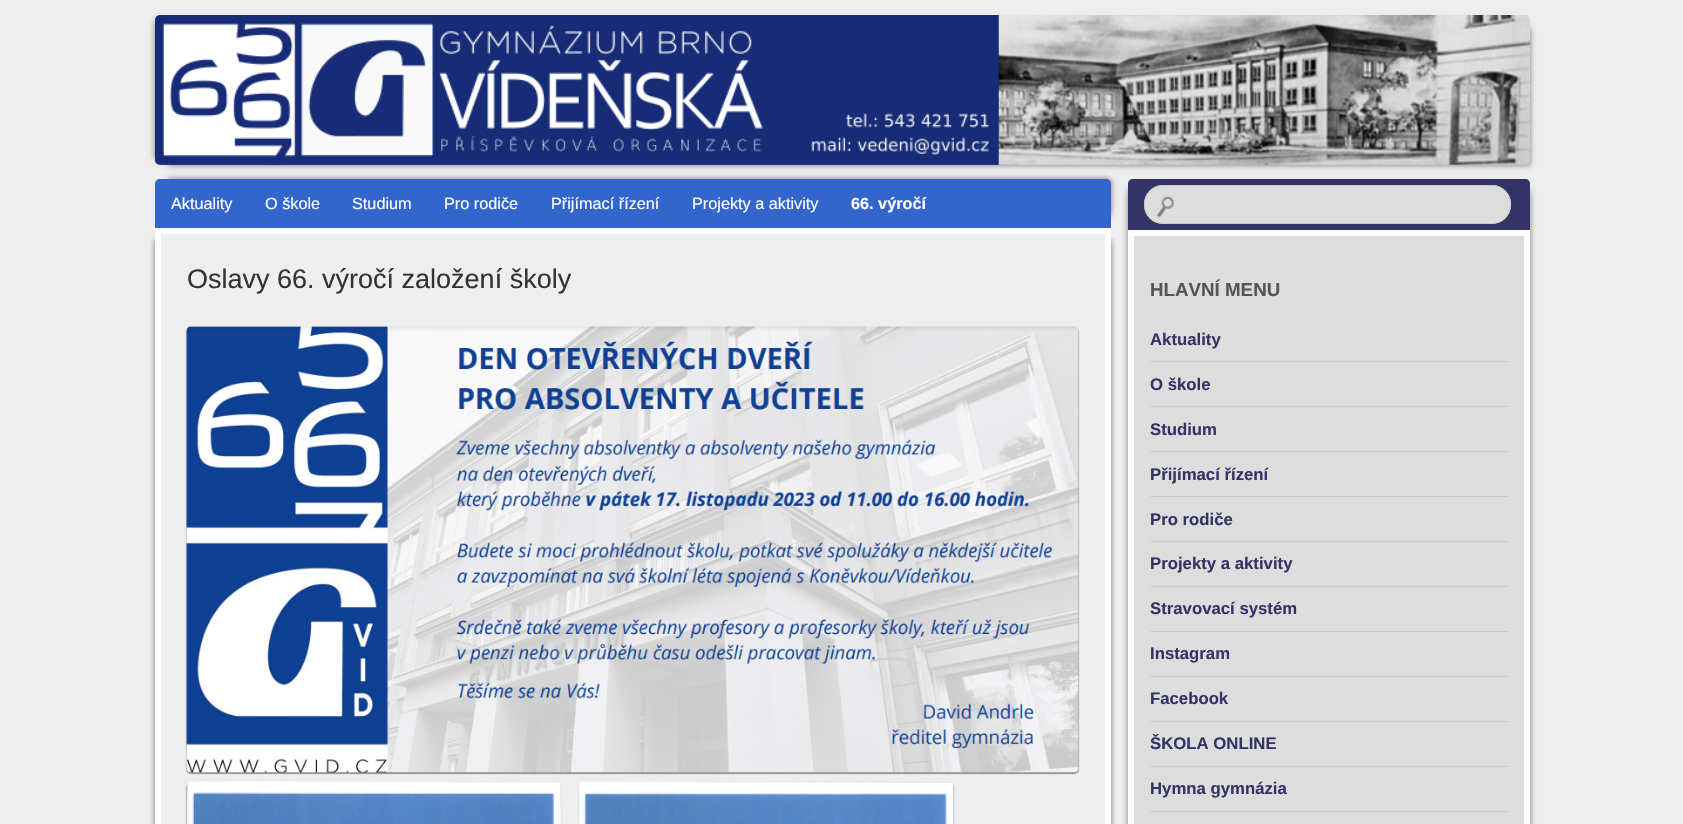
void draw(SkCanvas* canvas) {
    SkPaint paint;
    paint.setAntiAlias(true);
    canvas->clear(0xFFEEEEEE);
    paint.setColor(0x80000000);
    paint.setMaskFilter(SkMaskFilter::MakeBlur(kNormal_SkBlurStyle, 3));
    canvas->drawRect(SkRect::MakeXYWH(155, 21, 1363, 138), paint);
    paint.setMaskFilter(nullptr);
    paint.setMaskFilter(SkMaskFilter::MakeBlur(kNormal_SkBlurStyle, 3));
    canvas->drawRect(SkRect::MakeXYWH(168, 28, 1362, 137), paint);
    paint.setMaskFilter(nullptr);
    canvas->drawImageRect(SkImages::DeferredFromEncodedData(SkData::MakeFromFileName("img1.png")), SkRect::MakeXYWH(155, 15, 1375, 150), SkSamplingOptions());
    paint.setMaskFilter(SkMaskFilter::MakeBlur(kNormal_SkBlurStyle, 3));
    canvas->drawRect(SkRect::MakeXYWH(168, 179, 943, 36), paint);
    paint.setMaskFilter(nullptr);
    paint.setColor(0xFF3366CC);
    canvas->drawPath(SkPathBuilder().moveTo(160, 179).lineTo(1106, 179).cubicTo(1109, 179, 1111, 181, 1111, 184).lineTo(1111, 228).lineTo(155, 228).lineTo(155, 184).cubicTo(155, 181, 157, 179, 160, 179).close().detach(), paint);
    SkFont font1(fontMgr->matchFamilyStyle("Liberation Sans", SkFontStyle::Normal()), 16.25f);
    font1.setSubpixel(true);
    paint.setColor(0xFFFFFFFF);
    canvas->drawString("Aktuality", 171, 209, font1, paint);
    canvas->drawString("O škole", 265, 209, font1, paint);
    canvas->drawString("Studium", 352, 209, font1, paint);
    canvas->drawString("Pro rodiče", 444, 209, font1, paint);
    canvas->drawString("Přijímací řízení", 551, 209, font1, paint);
    canvas->drawString("Projekty a aktivity", 692, 209, font1, paint);
    SkFont font2(fontMgr->matchFamilyStyle("Liberation Sans", SkFontStyle::Bold()), 16.25f);
    font2.setSubpixel(true);
    canvas->drawString("66. výročí", 851, 209, font2, paint);
    canvas->save();
    canvas->clipRect(SkRect::MakeXYWH(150, 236, 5, 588));
    paint.setColor(0x80000000);
    paint.setMaskFilter(SkMaskFilter::MakeBlur(kNormal_SkBlurStyle, 3));
    canvas->drawRect(SkRect::MakeXYWH(155, 240, 944, 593), paint);
    paint.setMaskFilter(nullptr);
    canvas->restore();
    canvas->save();
    canvas->clipRect(SkRect::MakeXYWH(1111, 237, 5, 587));
    paint.setMaskFilter(SkMaskFilter::MakeBlur(kNormal_SkBlurStyle, 3));
    canvas->drawRect(SkRect::MakeXYWH(168, 240, 943, 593), paint);
    paint.setMaskFilter(nullptr);
    canvas->restore();
    paint.setStyle(SkPaint::kStroke_Style);
    paint.setStrokeWidth(6);
    paint.setColor(0xFFFFFFFF);
    canvas->drawRect(SkRect::MakeXYWH(158, 231, 950, 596), paint);
    SkFont font3(fontMgr->matchFamilyStyle("Liberation Sans", SkFontStyle::Normal()), 27);
    font3.setSubpixel(true);
    paint.setStyle(SkPaint::kFill_Style);
    paint.setColor(0xFF333333);
    canvas->drawString("Oslavy 66. výročí založení školy", 187, 288, font3, paint);
    paint.setColor(0x66000000);
    paint.setMaskFilter(SkMaskFilter::MakeBlur(kNormal_SkBlurStyle, 0.5f));
    canvas->drawRoundRect(SkRect::MakeXYWH(186, 328, 893, 446), 5, 5, paint);
    paint.setMaskFilter(nullptr);
    canvas->drawImageRect(SkImages::DeferredFromEncodedData(SkData::MakeFromFileName("img2.png")), SkRect::MakeXYWH(186, 326, 893, 447), SkSamplingOptions());
    paint.setMaskFilter(SkMaskFilter::MakeBlur(kNormal_SkBlurStyle, 0.5f));
    canvas->drawRoundRect(SkRect::MakeXYWH(186, 783, 375, 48), 5, 5, paint);
    paint.setMaskFilter(nullptr);
    canvas->drawImageRect(SkImages::DeferredFromEncodedData(SkData::MakeFromFileName("img3.png")), SkRect::MakeXYWH(186, 781, 375, 43), SkSamplingOptions());
    paint.setMaskFilter(SkMaskFilter::MakeBlur(kNormal_SkBlurStyle, 0.5f));
    canvas->drawRoundRect(SkRect::MakeXYWH(579, 783, 375, 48), 5, 5, paint);
    paint.setMaskFilter(nullptr);
    canvas->drawImageRect(SkImages::DeferredFromEncodedData(SkData::MakeFromFileName("img4.png")), SkRect::MakeXYWH(579, 781, 375, 43), SkSamplingOptions());
    paint.setColor(0x80000000);
    paint.setMaskFilter(SkMaskFilter::MakeBlur(kNormal_SkBlurStyle, 3));
    canvas->drawRect(SkRect::MakeXYWH(1128, 191, 390, 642), paint);
    paint.setMaskFilter(nullptr);
    paint.setMaskFilter(SkMaskFilter::MakeBlur(kNormal_SkBlurStyle, 3));
    canvas->drawRect(SkRect::MakeXYWH(1140, 191, 390, 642), paint);
    paint.setMaskFilter(nullptr);
    paint.setColor(0xFF333366);
    canvas->drawPath(SkPathBuilder().moveTo(1133, 179).lineTo(1525, 179).cubicTo(1528, 179, 1530, 181, 1530, 184).lineTo(1530, 230).lineTo(1128, 230).lineTo(1128, 184).cubicTo(1128, 181, 1130, 179, 1133, 179).close().detach(), paint);
    paint.setColor(0xFFDDDDDD);
    canvas->drawRoundRect(SkRect::MakeXYWH(1144, 185, 367, 39), 19, 19, paint);
    canvas->drawImageRect(SkImages::DeferredFromEncodedData(SkData::MakeFromFileName("img5.png")), SkRect::MakeXYWH(1157, 196, 17, 22), SkSamplingOptions());
    paint.setStyle(SkPaint::kStroke_Style);
    paint.setStrokeWidth(1);
    paint.setColor(0xFFCCCCCC);
    canvas->drawRoundRect(SkRect::MakeXYWH(1144.5f, 185.5f, 366, 38), 18.5f, 18.5f, paint);
    paint.setStyle(SkPaint::kFill_Style);
    paint.setColor(0xFFDDDDDD);
    canvas->drawRect(SkRect::MakeXYWH(1131, 233, 396, 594), paint);
    paint.setStyle(SkPaint::kStroke_Style);
    paint.setStrokeWidth(6);
    paint.setColor(0xFFFFFFFF);
    canvas->drawRect(SkRect::MakeXYWH(1131, 233, 396, 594), paint);
    SkFont font4(fontMgr->matchFamilyStyle("Liberation Sans", SkFontStyle::Bold()), 18.75f);
    font4.setSubpixel(true);
    paint.setStyle(SkPaint::kFill_Style);
    paint.setColor(0xFF555555);
    canvas->drawString("HLAVNÍ MENU", 1150, 296, font4, paint);
    paint.setColor(0xFFCCCCCC);
    canvas->drawRect(SkRect::MakeXYWH(1150, 361, 358, 1), paint);
    SkFont font5(fontMgr->matchFamilyStyle("Liberation Sans", SkFontStyle::Bold()), 16.75f);
    font5.setSubpixel(true);
    paint.setColor(0xFF333366);
    canvas->drawString("Aktuality", 1150, 345, font5, paint);
    paint.setColor(0xFFCCCCCC);
    canvas->drawRect(SkRect::MakeXYWH(1150, 406, 358, 1), paint);
    paint.setColor(0xFF333366);
    canvas->drawString("O škole", 1150, 390, font5, paint);
    paint.setColor(0xFFCCCCCC);
    canvas->drawRect(SkRect::MakeXYWH(1150, 451, 358, 1), paint);
    paint.setColor(0xFF333366);
    canvas->drawString("Studium", 1150, 435, font5, paint);
    paint.setColor(0xFFCCCCCC);
    canvas->drawRect(SkRect::MakeXYWH(1150, 496, 358, 1), paint);
    paint.setColor(0xFF333366);
    canvas->drawString("Přijímací řízení", 1150, 480, font5, paint);
    paint.setColor(0xFFCCCCCC);
    canvas->drawRect(SkRect::MakeXYWH(1150, 541, 358, 1), paint);
    paint.setColor(0xFF333366);
    canvas->drawString("Pro rodiče", 1150, 525, font5, paint);
    paint.setColor(0xFFCCCCCC);
    canvas->drawRect(SkRect::MakeXYWH(1150, 586, 358, 1), paint);
    paint.setColor(0xFF333366);
    canvas->drawString("Projekty a aktivity", 1150, 569, font5, paint);
    paint.setColor(0xFFCCCCCC);
    canvas->drawRect(SkRect::MakeXYWH(1150, 631, 358, 1), paint);
    paint.setColor(0xFF333366);
    canvas->drawString("Stravovací systém", 1150, 614, font5, paint);
    paint.setColor(0xFFCCCCCC);
    canvas->drawRect(SkRect::MakeXYWH(1150, 676, 358, 1), paint);
    paint.setColor(0xFF333366);
    canvas->drawString("Instagram", 1150, 659, font5, paint);
    paint.setColor(0xFFCCCCCC);
    canvas->drawRect(SkRect::MakeXYWH(1150, 721, 358, 1), paint);
    paint.setColor(0xFF333366);
    canvas->drawString("Facebook", 1150, 704, font5, paint);
    paint.setColor(0xFFCCCCCC);
    canvas->drawRect(SkRect::MakeXYWH(1150, 766, 358, 1), paint);
    paint.setColor(0xFF333366);
    canvas->drawString("ŠKOLA ONLINE", 1150, 749, font5, paint);
    paint.setColor(0xFFCCCCCC);
    canvas->drawRect(SkRect::MakeXYWH(1150, 811, 358, 1), paint);
    paint.setColor(0xFF333366);
    canvas->drawString("Hymna gymnázia", 1150, 794, font5, paint);
}
